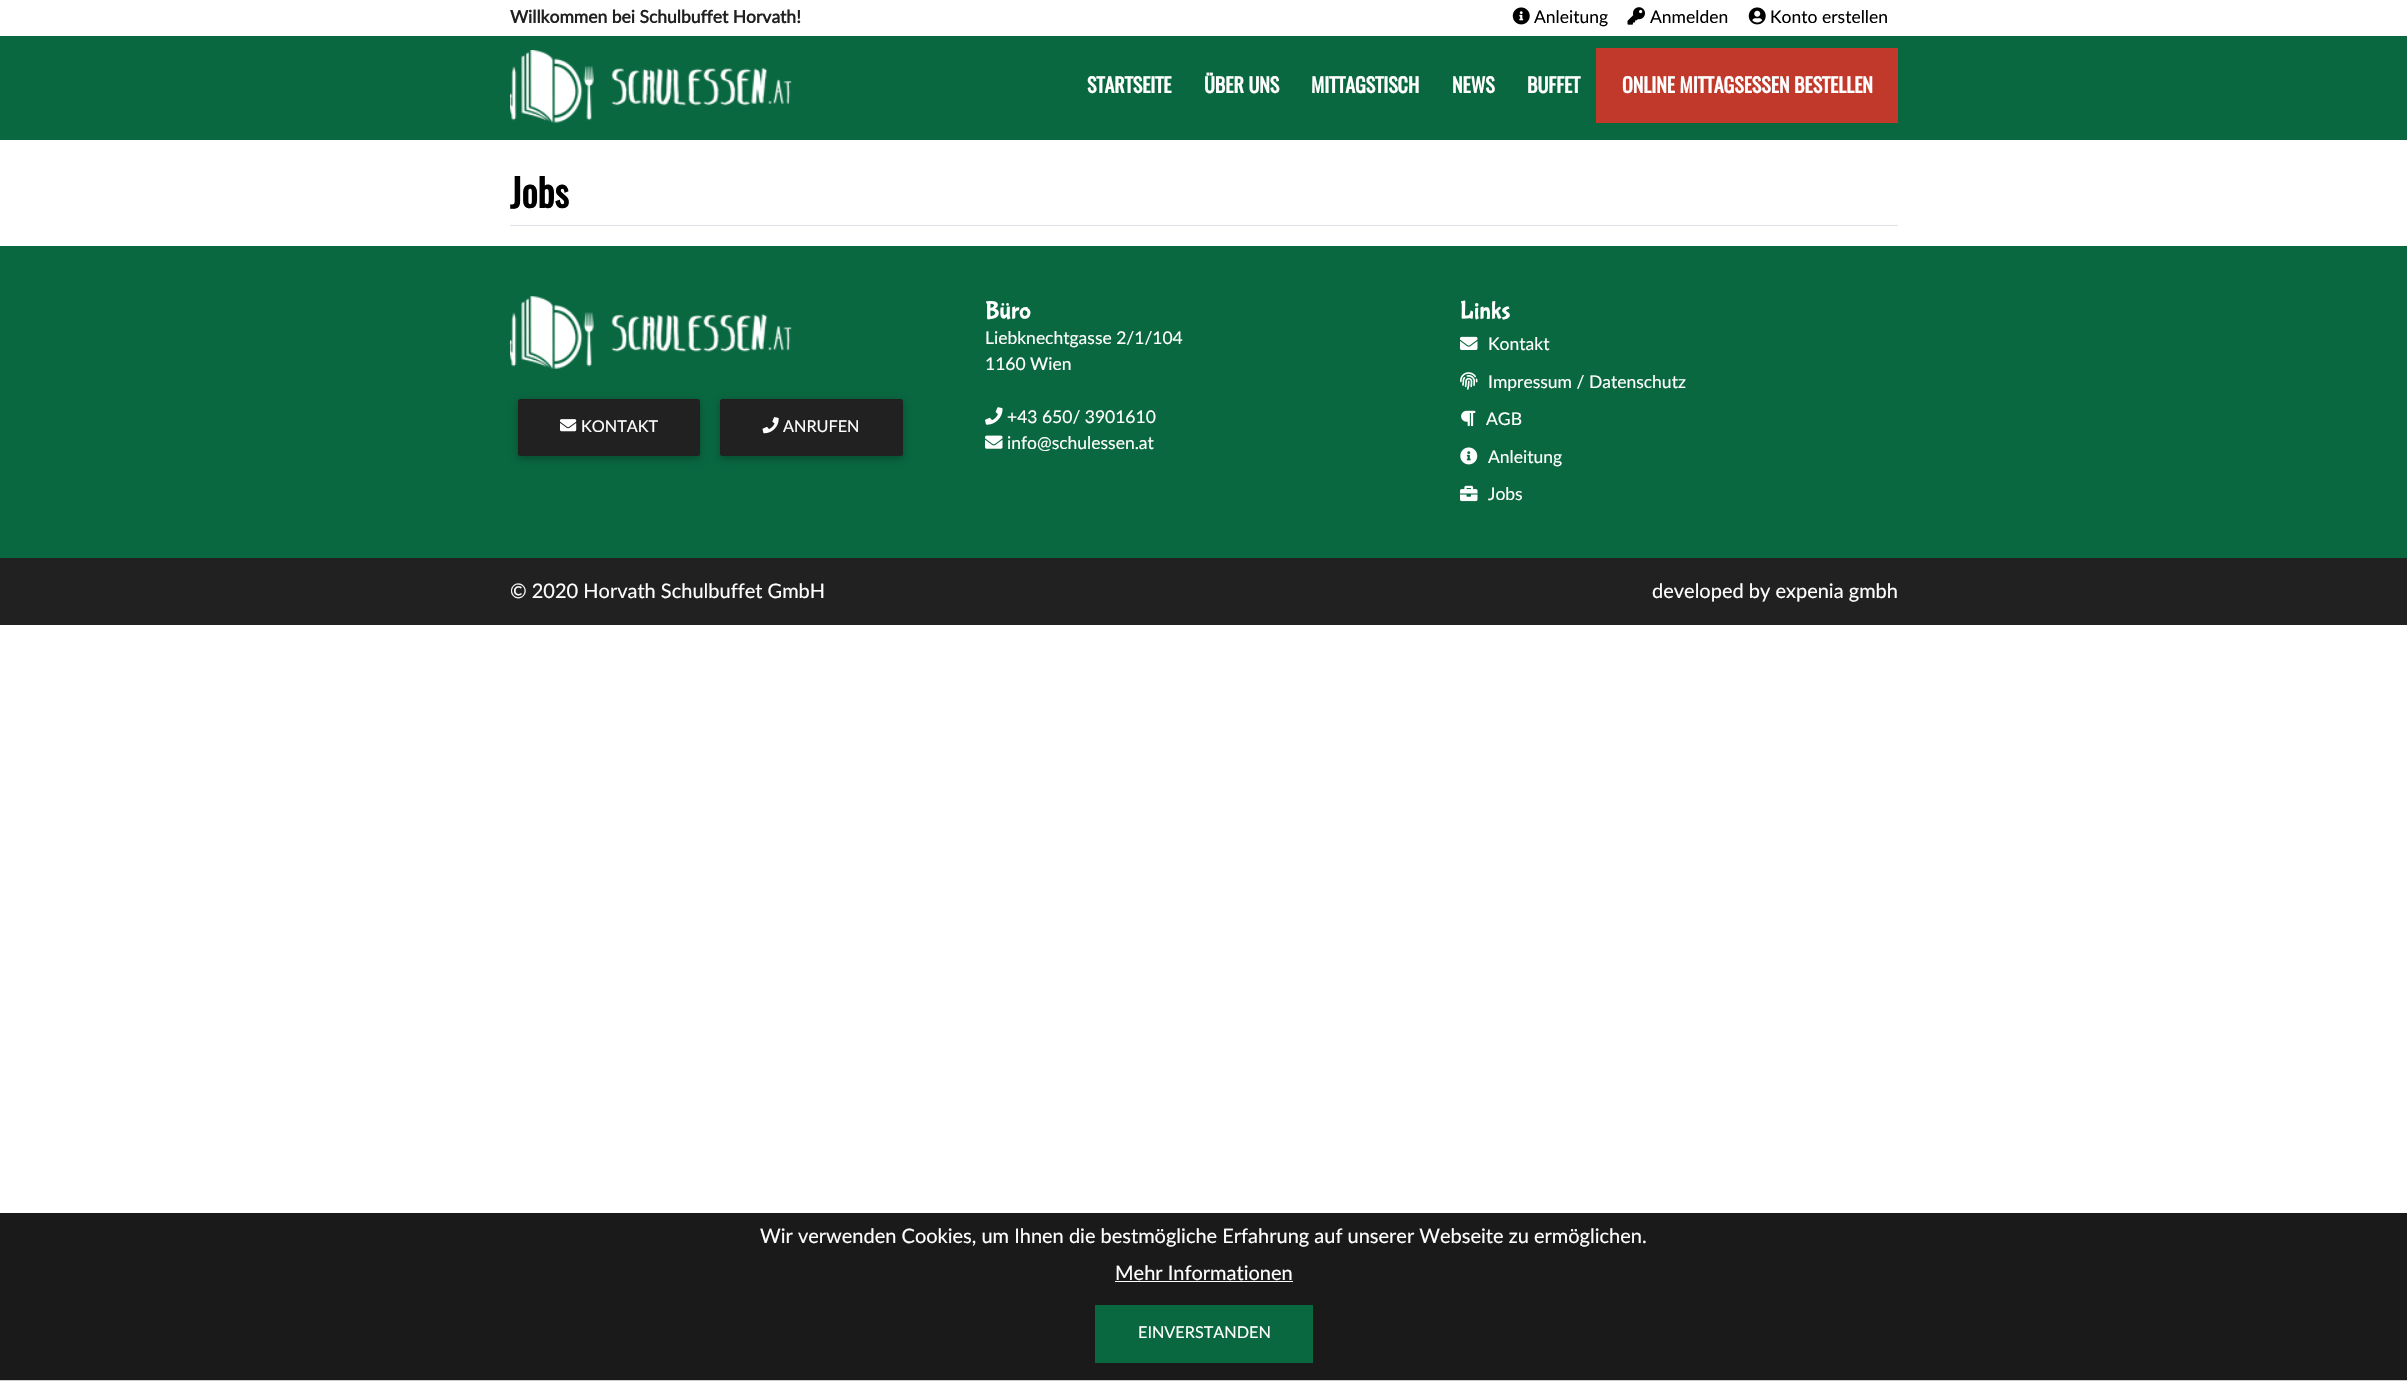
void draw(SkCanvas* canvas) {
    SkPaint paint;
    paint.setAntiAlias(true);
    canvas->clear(0xFFFFFFFF);
    SkFont font1(fontMgr->matchFamilyStyle("Lato", SkFontStyle::Bold()), 17.5f);
    font1.setSubpixel(true);
    paint.setColor(0xFF212121);
    canvas->drawString("Willkommen bei Schulbuffet Horvath!", 510, 23, font1, paint);
    canvas->drawImageRect(SkImages::DeferredFromEncodedData(SkData::MakeFromFileName("img1.png")), SkRect::MakeXYWH(1512, 7, 18, 18), SkSamplingOptions());
    SkFont font2(fontMgr->matchFamilyStyle("Lato", SkFontStyle::Normal()), 17.5f);
    font2.setSubpixel(true);
    paint.setColor(0xFF000000);
    canvas->drawString("Anleitung", 1534, 23, font2, paint);
    canvas->drawImageRect(SkImages::DeferredFromEncodedData(SkData::MakeFromFileName("img2.png")), SkRect::MakeXYWH(1627, 7, 18, 18), SkSamplingOptions());
    canvas->drawString("Anmelden", 1650, 23, font2, paint);
    canvas->drawImageRect(SkImages::DeferredFromEncodedData(SkData::MakeFromFileName("img3.png")), SkRect::MakeXYWH(1748, 7, 18, 18), SkSamplingOptions());
    canvas->drawString("Konto erstellen", 1770, 23, font2, paint);
    paint.setColor(0xFF096840);
    canvas->drawRect(SkRect::MakeXYWH(0, 36, 2407, 104), paint);
    canvas->drawImageRect(SkImages::DeferredFromEncodedData(SkData::MakeFromFileName("img4.png")), SkRect::MakeXYWH(510, 50, 282, 73), SkSamplingOptions());
    SkFont font3(fontMgr->matchFamilyStyle("Oswald", SkFontStyle::Bold()), 20);
    font3.setSubpixel(true);
    paint.setColor(0xFFFFFFFF);
    canvas->drawString("STARTSEITE", 1087, 93, font3, paint);
    canvas->drawString("ÜBER UNS", 1204, 93, font3, paint);
    canvas->drawString("MITTAGSTISCH", 1311, 93, font3, paint);
    canvas->drawString("NEWS", 1452, 93, font3, paint);
    canvas->drawString("BUFFET", 1527, 93, font3, paint);
    paint.setColor(0xFFC0392B);
    canvas->drawRect(SkRect::MakeXYWH(1596, 48, 302, 75), paint);
    paint.setColor(0xFFFFFFFF);
    canvas->drawString("ONLINE MITTAGSESSEN BESTELLEN", 1622, 93, font3, paint);
    paint.setColor(0xFFDEE2E6);
    canvas->drawRect(SkRect::MakeXYWH(510, 225, 1388, 1), paint);
    SkFont font4(fontMgr->matchFamilyStyle("Oswald", SkFontStyle::Bold()), 38);
    font4.setSubpixel(true);
    paint.setColor(0xFF000000);
    canvas->drawString("Jobs", 510, 208, font4, paint);
    paint.setColor(0xFF096840);
    canvas->drawRect(SkRect::MakeXYWH(0, 246, 2407, 312), paint);
    canvas->drawImageRect(SkImages::DeferredFromEncodedData(SkData::MakeFromFileName("img5.png")), SkRect::MakeXYWH(510, 296, 282, 73), SkSamplingOptions());
    paint.setColor(0x1F000000);
    paint.setMaskFilter(SkMaskFilter::MakeBlur(kNormal_SkBlurStyle, 6));
    canvas->drawRoundRect(SkRect::MakeXYWH(518, 401, 182, 58), 2.5f, 2.5f, paint);
    paint.setMaskFilter(nullptr);
    paint.setColor(0x29000000);
    paint.setMaskFilter(SkMaskFilter::MakeBlur(kNormal_SkBlurStyle, 3));
    canvas->drawRoundRect(SkRect::MakeXYWH(518, 401, 182, 58), 2.5f, 2.5f, paint);
    paint.setMaskFilter(nullptr);
    paint.setColor(0xFF212121);
    canvas->drawRoundRect(SkRect::MakeXYWH(518, 399, 182, 57), 2.5f, 2.5f, paint);
    canvas->drawImageRect(SkImages::DeferredFromEncodedData(SkData::MakeFromFileName("img6.png")), SkRect::MakeXYWH(560, 419, 17, 13), SkSamplingOptions());
    SkFont font5(fontMgr->matchFamilyStyle("Lato", SkFontStyle::Normal()), 16.25f);
    font5.setSubpixel(true);
    paint.setColor(0xFFFFFFFF);
    canvas->drawString("KONTAKT", 581, 432, font5, paint);
    paint.setColor(0x1F000000);
    paint.setMaskFilter(SkMaskFilter::MakeBlur(kNormal_SkBlurStyle, 6));
    canvas->drawRoundRect(SkRect::MakeXYWH(720, 401, 183, 58), 2.5f, 2.5f, paint);
    paint.setMaskFilter(nullptr);
    paint.setColor(0x29000000);
    paint.setMaskFilter(SkMaskFilter::MakeBlur(kNormal_SkBlurStyle, 3));
    canvas->drawRoundRect(SkRect::MakeXYWH(720, 401, 183, 58), 2.5f, 2.5f, paint);
    paint.setMaskFilter(nullptr);
    paint.setColor(0xFF212121);
    canvas->drawRoundRect(SkRect::MakeXYWH(720, 399, 183, 57), 2.5f, 2.5f, paint);
    canvas->drawImageRect(SkImages::DeferredFromEncodedData(SkData::MakeFromFileName("img7.png")), SkRect::MakeXYWH(762, 417, 17, 17), SkSamplingOptions());
    paint.setColor(0xFFFFFFFF);
    canvas->drawString("ANRUFEN", 783, 432, font5, paint);
    SkFont font6(fontMgr->matchFamilyStyle("Bubblegum Sans", SkFontStyle::Normal()), 25);
    font6.setSubpixel(true);
    canvas->drawString("Büro", 985, 318, font6, paint);
    canvas->drawString("Liebknechtgasse 2/1/104", 985, 344, font2, paint);
    canvas->drawString("1160 Wien", 985, 370, font2, paint);
    canvas->drawImageRect(SkImages::DeferredFromEncodedData(SkData::MakeFromFileName("img8.png")), SkRect::MakeXYWH(985, 407, 18, 18), SkSamplingOptions());
    canvas->drawString("+43 650/ 3901610", 1007, 423, font2, paint);
    canvas->drawImageRect(SkImages::DeferredFromEncodedData(SkData::MakeFromFileName("img9.png")), SkRect::MakeXYWH(985, 435, 18, 14), SkSamplingOptions());
    canvas->drawString("info@schulessen.at", 1007, 449, font2, paint);
    canvas->drawString("Links", 1460, 318, font6, paint);
    canvas->drawImageRect(SkImages::DeferredFromEncodedData(SkData::MakeFromFileName("img10.png")), SkRect::MakeXYWH(1460, 336, 18, 14), SkSamplingOptions());
    canvas->drawString("Kontakt", 1488, 350, font2, paint);
    canvas->drawImageRect(SkImages::DeferredFromEncodedData(SkData::MakeFromFileName("img11.png")), SkRect::MakeXYWH(1460, 372, 18, 18), SkSamplingOptions());
    canvas->drawString("Impressum / Datenschutz", 1488, 388, font2, paint);
    canvas->drawImageRect(SkImages::DeferredFromEncodedData(SkData::MakeFromFileName("img12.png")), SkRect::MakeXYWH(1461, 410, 15, 17), SkSamplingOptions());
    canvas->drawString("AGB", 1486, 425, font2, paint);
    canvas->drawImageRect(SkImages::DeferredFromEncodedData(SkData::MakeFromFileName("img13.png")), SkRect::MakeXYWH(1460, 447, 18, 18), SkSamplingOptions());
    canvas->drawString("Anleitung", 1488, 463, font2, paint);
    canvas->drawImageRect(SkImages::DeferredFromEncodedData(SkData::MakeFromFileName("img14.png")), SkRect::MakeXYWH(1460, 485, 18, 17), SkSamplingOptions());
    canvas->drawString("Jobs", 1488, 500, font2, paint);
    paint.setColor(0xFF212121);
    canvas->drawRect(SkRect::MakeXYWH(0, 558, 2407, 67), paint);
    SkFont font7(fontMgr->matchFamilyStyle("Lato", SkFontStyle::Normal()), 20);
    font7.setSubpixel(true);
    paint.setColor(0xFFFFFFFF);
    canvas->drawString("© 2020 Horvath Schulbuffet GmbH", 510, 598, font7, paint);
    canvas->drawString("developed by expenia gmbh", 1652, 598, font7, paint);
    paint.setColor(0xFF1A1A1A);
    canvas->drawRect(SkRect::MakeXYWH(0, 1213, 2407, 167), paint);
    paint.setColor(0xFFCCCCCC);
    canvas->drawRect(SkRect::MakeXYWH(0, 1380, 2407, 1), paint);
    paint.setColor(0xFFFFFFFF);
    canvas->drawString("Wir verwenden Cookies, um Ihnen die bestmögliche Erfahrung auf unserer Webseite zu ermöglichen.", 760, 1243, font7, paint);
    canvas->drawString("Mehr Informationen", 1115, 1280, font7, paint);
    canvas->drawRect(SkRect::MakeXYWH(1115, 1281, 178, 1), paint);
    paint.setColor(0xFF096840);
    canvas->drawRect(SkRect::MakeXYWH(1095, 1305, 218, 58), paint);
    paint.setColor(0xFFFFFFFF);
    canvas->drawString("EINVERSTANDEN", 1138, 1338, font5, paint);
}
